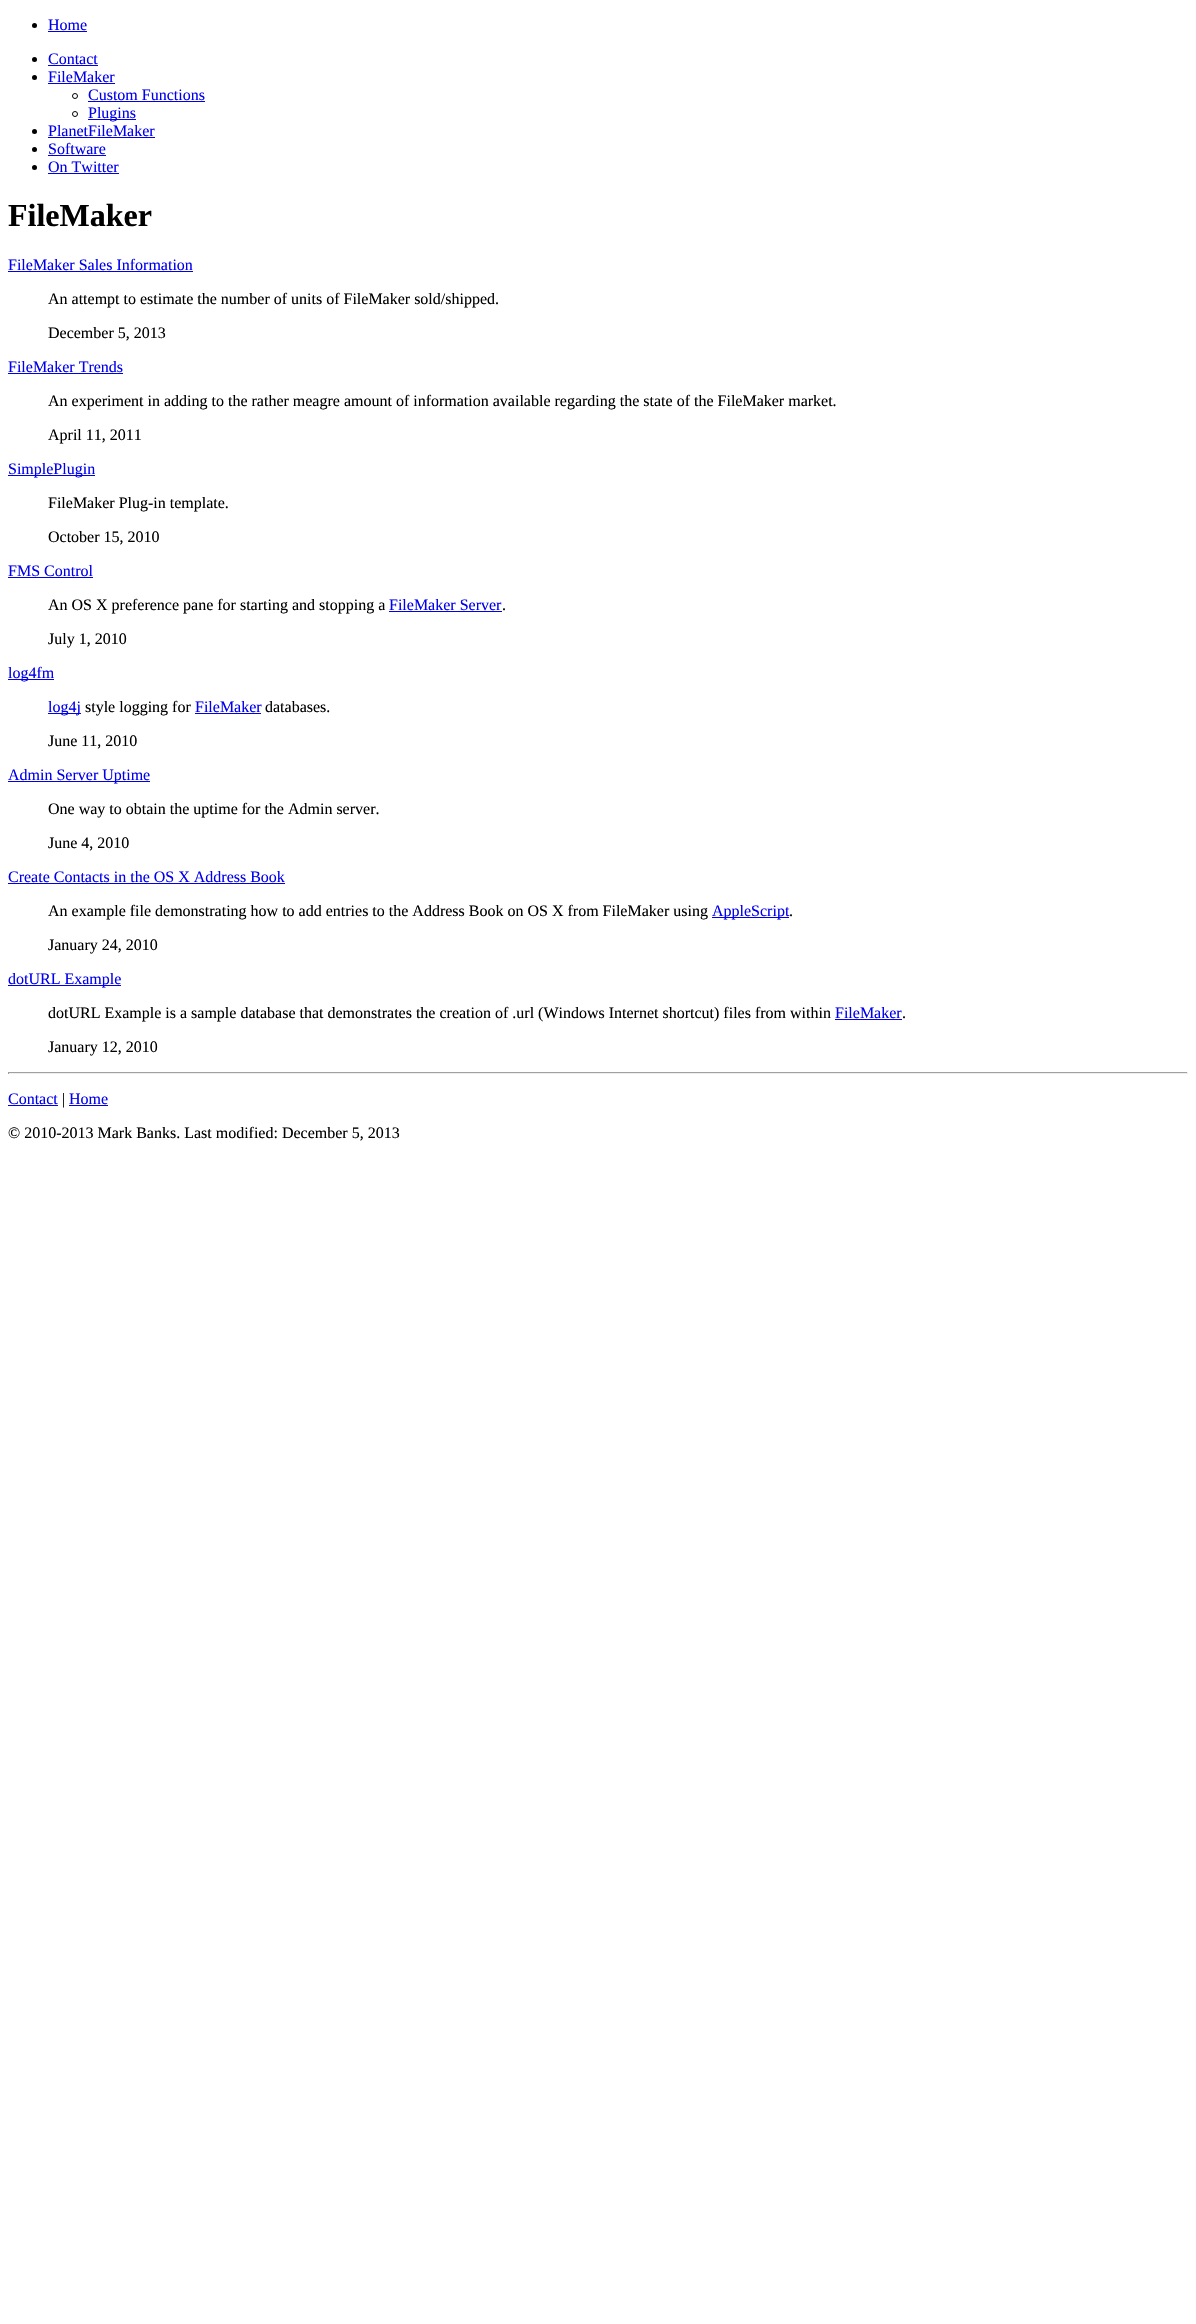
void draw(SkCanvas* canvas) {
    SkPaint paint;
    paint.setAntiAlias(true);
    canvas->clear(0xFFFFFFFF);
    paint.setColor(0xFF000000);
    canvas->drawCircle(34.5f, 25.5f, 2.5f, paint);
    SkFont font1(fontMgr->matchFamilyStyle("Liberation Serif", SkFontStyle::Normal()), 16);
    font1.setSubpixel(true);
    paint.setColor(0xFF0000EE);
    canvas->drawString("Home", 48, 30, font1, paint);
    canvas->drawRect(SkRect::MakeXYWH(48, 31, 39, 1), paint);
    paint.setColor(0xFF000000);
    canvas->drawCircle(34.5f, 59.5f, 2.5f, paint);
    paint.setColor(0xFF0000EE);
    canvas->drawString("Contact", 48, 64, font1, paint);
    canvas->drawRect(SkRect::MakeXYWH(48, 65, 50, 1), paint);
    paint.setColor(0xFF000000);
    canvas->drawCircle(34.5f, 77.5f, 2.5f, paint);
    paint.setColor(0xFF0000EE);
    canvas->drawString("FileMaker", 48, 82, font1, paint);
    canvas->drawRect(SkRect::MakeXYWH(48, 83, 67, 1), paint);
    paint.setStyle(SkPaint::kStroke_Style);
    paint.setStrokeWidth(1);
    paint.setColor(0xFF000000);
    canvas->drawCircle(75, 96, 2.5f, paint);
    paint.setStyle(SkPaint::kFill_Style);
    paint.setColor(0xFF0000EE);
    canvas->drawString("Custom Functions", 88, 100, font1, paint);
    canvas->drawRect(SkRect::MakeXYWH(88, 101, 117, 1), paint);
    paint.setStyle(SkPaint::kStroke_Style);
    paint.setColor(0xFF000000);
    canvas->drawCircle(75, 114, 2.5f, paint);
    paint.setStyle(SkPaint::kFill_Style);
    paint.setColor(0xFF0000EE);
    canvas->drawRect(SkRect::MakeXYWH(88, 119, 48, 1), paint);
    canvas->drawString("Plugins", 88, 118, font1, paint);
    paint.setColor(0xFF000000);
    canvas->drawCircle(34.5f, 131.5f, 2.5f, paint);
    paint.setColor(0xFF0000EE);
    canvas->drawString("PlanetFileMaker", 48, 136, font1, paint);
    canvas->drawRect(SkRect::MakeXYWH(48, 137, 107, 1), paint);
    paint.setColor(0xFF000000);
    canvas->drawCircle(34.5f, 149.5f, 2.5f, paint);
    paint.setColor(0xFF0000EE);
    canvas->drawString("Software", 48, 154, font1, paint);
    canvas->drawRect(SkRect::MakeXYWH(48, 155, 58, 1), paint);
    paint.setColor(0xFF000000);
    canvas->drawCircle(34.5f, 167.5f, 2.5f, paint);
    paint.setColor(0xFF0000EE);
    canvas->drawString("On Twitter", 48, 172, font1, paint);
    canvas->drawRect(SkRect::MakeXYWH(48, 173, 71, 1), paint);
    SkFont font2(fontMgr->matchFamilyStyle("Liberation Serif", SkFontStyle::Bold()), 32);
    font2.setSubpixel(true);
    paint.setColor(0xFF000000);
    canvas->drawString("FileMaker", 8, 226, font2, paint);
    paint.setColor(0xFF0000EE);
    canvas->drawString("FileMaker Sales Information", 8, 270, font1, paint);
    canvas->drawRect(SkRect::MakeXYWH(8, 271, 185, 1), paint);
    paint.setColor(0xFF000000);
    canvas->drawString("An attempt to estimate the number of units of FileMaker sold/shipped.", 48, 304, font1, paint);
    canvas->drawString("December 5, 2013", 48, 338, font1, paint);
    paint.setColor(0xFF0000EE);
    canvas->drawString("FileMaker Trends", 8, 372, font1, paint);
    canvas->drawRect(SkRect::MakeXYWH(8, 373, 115, 1), paint);
    paint.setColor(0xFF000000);
    canvas->drawString("An experiment in adding to the rather meagre amount of information available regarding the state of the FileMaker market.", 48, 406, font1, paint);
    canvas->drawString("April 11, 2011", 48, 440, font1, paint);
    paint.setColor(0xFF0000EE);
    canvas->drawRect(SkRect::MakeXYWH(8, 475, 87, 1), paint);
    canvas->drawString("SimplePlugin", 8, 474, font1, paint);
    paint.setColor(0xFF000000);
    canvas->drawString("FileMaker Plug-in template.", 48, 508, font1, paint);
    canvas->drawString("October 15, 2010", 48, 542, font1, paint);
    paint.setColor(0xFF0000EE);
    canvas->drawString("FMS Control", 8, 576, font1, paint);
    canvas->drawRect(SkRect::MakeXYWH(8, 577, 85, 1), paint);
    paint.setColor(0xFF000000);
    canvas->drawString("An OS X preference pane for starting and stopping a", 48, 610, font1, paint);
    paint.setColor(0xFF0000EE);
    canvas->drawString("FileMaker Server", 389, 610, font1, paint);
    canvas->drawRect(SkRect::MakeXYWH(389, 611, 113, 1), paint);
    paint.setColor(0xFF000000);
    canvas->drawString(".", 502, 610, font1, paint);
    canvas->drawString("July 1, 2010", 48, 644, font1, paint);
    paint.setColor(0xFF0000EE);
    canvas->drawRect(SkRect::MakeXYWH(8, 679, 46, 1), paint);
    canvas->drawString("log4fm", 8, 678, font1, paint);
    canvas->drawRect(SkRect::MakeXYWH(48, 713, 33, 1), paint);
    canvas->drawString("log4j", 48, 712, font1, paint);
    paint.setColor(0xFF000000);
    canvas->drawString("style logging for", 85, 712, font1, paint);
    paint.setColor(0xFF0000EE);
    canvas->drawString("FileMaker", 195, 712, font1, paint);
    canvas->drawRect(SkRect::MakeXYWH(195, 713, 66, 1), paint);
    paint.setColor(0xFF000000);
    canvas->drawString("databases.", 265, 712, font1, paint);
    canvas->drawString("June 11, 2010", 48, 746, font1, paint);
    paint.setColor(0xFF0000EE);
    canvas->drawRect(SkRect::MakeXYWH(8, 781, 142, 1), paint);
    canvas->drawString("Admin Server Uptime", 8, 780, font1, paint);
    paint.setColor(0xFF000000);
    canvas->drawString("One way to obtain the uptime for the Admin server.", 48, 814, font1, paint);
    canvas->drawString("June 4, 2010", 48, 848, font1, paint);
    paint.setColor(0xFF0000EE);
    canvas->drawString("Create Contacts in the OS X Address Book", 8, 882, font1, paint);
    canvas->drawRect(SkRect::MakeXYWH(8, 883, 277, 1), paint);
    paint.setColor(0xFF000000);
    canvas->drawString("An example file demonstrating how to add entries to the Address Book on OS X from FileMaker using", 48, 916, font1, paint);
    paint.setColor(0xFF0000EE);
    canvas->drawRect(SkRect::MakeXYWH(712, 917, 77, 1), paint);
    canvas->drawString("AppleScript", 712, 916, font1, paint);
    paint.setColor(0xFF000000);
    canvas->drawString(".", 789, 916, font1, paint);
    canvas->drawString("January 24, 2010", 48, 950, font1, paint);
    paint.setColor(0xFF0000EE);
    canvas->drawRect(SkRect::MakeXYWH(8, 985, 113, 1), paint);
    canvas->drawString("dotURL Example", 8, 984, font1, paint);
    paint.setColor(0xFF000000);
    canvas->drawString("dotURL Example is a sample database that demonstrates the creation of .url (Windows Internet shortcut) files from within", 48, 1018, font1, paint);
    paint.setColor(0xFF0000EE);
    canvas->drawString("FileMaker", 835, 1018, font1, paint);
    canvas->drawRect(SkRect::MakeXYWH(835, 1019, 67, 1), paint);
    paint.setColor(0xFF000000);
    canvas->drawString(".", 902, 1018, font1, paint);
    canvas->drawString("January 12, 2010", 48, 1052, font1, paint);
    paint.setColor(0xFF9F9F9F);
    canvas->drawRect(SkRect::MakeXYWH(8, 1072, 1180, 1), paint);
    paint.setColor(0xFFEEEEEE);
    canvas->drawRect(SkRect::MakeXYWH(1187, 1072, 1, 2), paint);
    canvas->drawRect(SkRect::MakeXYWH(8, 1073, 1180, 1), paint);
    paint.setColor(0xFF9F9F9F);
    canvas->drawRect(SkRect::MakeXYWH(8, 1072, 1, 2), paint);
    paint.setColor(0xFF0000EE);
    canvas->drawString("Contact", 8, 1104, font1, paint);
    canvas->drawRect(SkRect::MakeXYWH(8, 1105, 50, 1), paint);
    paint.setColor(0xFF000000);
    canvas->drawString("|", 62, 1104, font1, paint);
    paint.setColor(0xFF0000EE);
    canvas->drawString("Home", 69, 1104, font1, paint);
    canvas->drawRect(SkRect::MakeXYWH(69, 1105, 39, 1), paint);
    paint.setColor(0xFF000000);
    canvas->drawString("© 2010-2013 Mark Banks. Last modified: December 5, 2013", 8, 1138, font1, paint);
}
